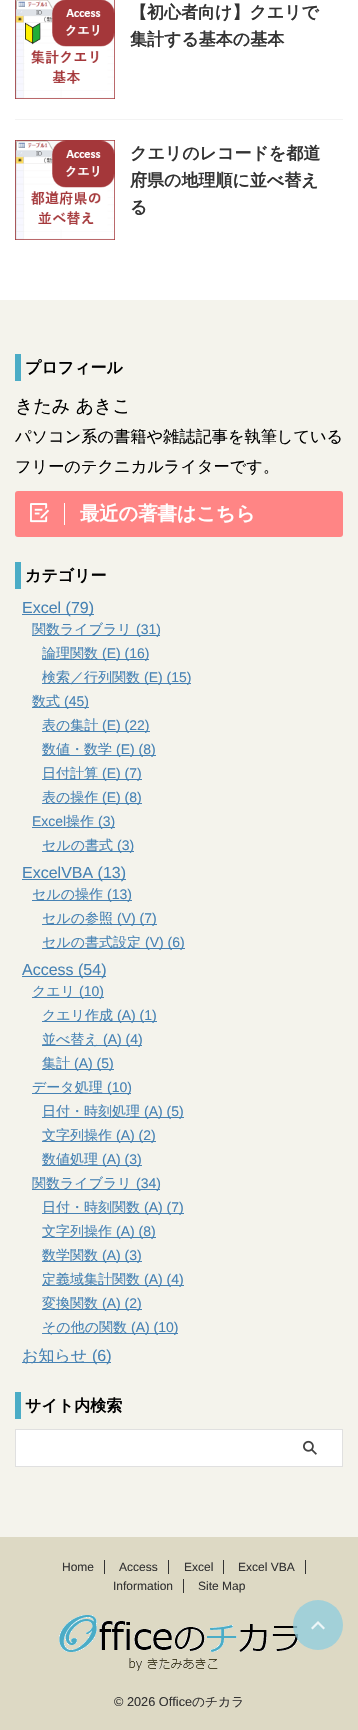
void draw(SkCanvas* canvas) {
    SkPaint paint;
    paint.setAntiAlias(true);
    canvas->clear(0xFFF4F3EC);
    paint.setColor(0xFFFFFFFF);
    canvas->drawRect(SkRect::MakeXYWH(0, 0, 358, 300), paint);
    paint.setColor(0xFFF3F3F3);
    canvas->drawRect(SkRect::MakeXYWH(15, 119, 328, 1), paint);
    canvas->drawImageRect(SkImages::DeferredFromEncodedData(SkData::MakeFromFileName("img1.png")), SkRect::MakeXYWH(15, 0, 100, 99), SkSamplingOptions());
    SkFont font1(fontMgr->matchFamilyStyle("WenQuanYi Zen Hei", SkFontStyle::Bold()), 17);
    font1.setSubpixel(true);
    paint.setColor(0xFF333333);
    canvas->drawString("【初心者向け】クエリで", 130, 18, font1, paint);
    canvas->drawString("集計する基本の基本", 130, 45, font1, paint);
    canvas->drawImageRect(SkImages::DeferredFromEncodedData(SkData::MakeFromFileName("img2.png")), SkRect::MakeXYWH(15, 140, 100, 100), SkSamplingOptions());
    canvas->drawString("クエリのレコードを都道", 130, 159, font1, paint);
    canvas->drawString("府県の地理順に並べ替え", 130, 186, font1, paint);
    canvas->drawString("る", 130, 213, font1, paint);
    paint.setColor(0xFF4BACC6);
    canvas->drawRect(SkRect::MakeXYWH(15, 354, 6, 27), paint);
    SkFont font2(fontMgr->matchFamilyStyle("WenQuanYi Zen Hei", SkFontStyle::Bold()), 16);
    font2.setSubpixel(true);
    paint.setColor(0xFF000000);
    canvas->drawString("プロフィール", 25, 373, font2, paint);
    SkFont font3(fontMgr->matchFamilyStyle("WenQuanYi Zen Hei", SkFontStyle(500, SkFontStyle::kNormal_Width, SkFontStyle::kUpright_Slant)), 18);
    font3.setSubpixel(true);
    canvas->drawString("きたみ あきこ", 15, 412, font3, paint);
    SkFont font4(fontMgr->matchFamilyStyle("WenQuanYi Zen Hei", SkFontStyle(500, SkFontStyle::kNormal_Width, SkFontStyle::kUpright_Slant)), 16.2f);
    font4.setSubpixel(true);
    canvas->drawString("パソコン系の書籍や雑誌記事を執筆している", 15, 442, font4, paint);
    canvas->drawString("フリーのテクニカルライターです。", 15, 472, font4, paint);
    paint.setColor(0xFFFF8585);
    canvas->drawRoundRect(SkRect::MakeXYWH(15, 491, 328, 46), 3, 3, paint);
    paint.setColor(0xFFFFFFFF);
    canvas->drawRect(SkRect::MakeXYWH(64, 503, 1, 22), paint);
    canvas->drawImageRect(SkImages::DeferredFromEncodedData(SkData::MakeFromFileName("img3.png")), SkRect::MakeXYWH(30, 503, 20, 20), SkSamplingOptions());
    SkFont font5(fontMgr->matchFamilyStyle("WenQuanYi Zen Hei", SkFontStyle::Bold()), 19.25f);
    font5.setSubpixel(true);
    canvas->drawString("最近の著書はこちら", 80, 520, font5, paint);
    paint.setColor(0xFF4BACC6);
    canvas->drawRect(SkRect::MakeXYWH(15, 562, 6, 27), paint);
    paint.setColor(0xFF000000);
    canvas->drawString("カテゴリー", 25, 581, font2, paint);
    paint.setColor(0xFF4682B4);
    canvas->drawRect(SkRect::MakeXYWH(22, 614, 72, 1), paint);
    SkFont font6(fontMgr->matchFamilyStyle("Liberation Sans", SkFontStyle::Normal()), 16);
    font6.setSubpixel(true);
    canvas->drawString("Excel (79)", 22, 613, font6, paint);
    canvas->drawRect(SkRect::MakeXYWH(32, 635, 128, 1), paint);
    SkFont font7(fontMgr->matchFamilyStyle("WenQuanYi Zen Hei", SkFontStyle(500, SkFontStyle::kNormal_Width, SkFontStyle::kUpright_Slant)), 14);
    font7.setSubpixel(true);
    canvas->drawString("関数ライブラリ", 32, 634, font7, paint);
    SkFont font8(fontMgr->matchFamilyStyle("Liberation Sans", SkFontStyle::Normal()), 14);
    font8.setSubpixel(true);
    canvas->drawString("(31)", 136, 634, font8, paint);
    canvas->drawRect(SkRect::MakeXYWH(42, 659, 107, 1), paint);
    canvas->drawString("論理関数", 42, 658, font7, paint);
    canvas->drawString("(E) (16)", 102, 658, font8, paint);
    canvas->drawRect(SkRect::MakeXYWH(42, 683, 149, 1), paint);
    canvas->drawString("検索／行列関数", 42, 682, font7, paint);
    canvas->drawString("(E) (15)", 144, 682, font8, paint);
    canvas->drawRect(SkRect::MakeXYWH(32, 707, 57, 1), paint);
    canvas->drawString("数式", 32, 706, font7, paint);
    canvas->drawString("(45)", 64, 706, font8, paint);
    canvas->drawRect(SkRect::MakeXYWH(42, 731, 108, 1), paint);
    canvas->drawString("表の集計", 42, 730, font7, paint);
    canvas->drawString("(E) (22)", 102, 730, font8, paint);
    canvas->drawRect(SkRect::MakeXYWH(42, 755, 114, 1), paint);
    canvas->drawString("数値・数学", 42, 754, font7, paint);
    canvas->drawString("(E) (8)", 116, 754, font8, paint);
    canvas->drawRect(SkRect::MakeXYWH(42, 779, 100, 1), paint);
    canvas->drawString("日付計算", 42, 778, font7, paint);
    canvas->drawString("(E) (7)", 102, 778, font8, paint);
    canvas->drawRect(SkRect::MakeXYWH(42, 803, 100, 1), paint);
    canvas->drawString("表の操作", 42, 802, font7, paint);
    canvas->drawString("(E) (8)", 102, 802, font8, paint);
    canvas->drawString("Excel", 32, 826, font8, paint);
    canvas->drawRect(SkRect::MakeXYWH(32, 827, 83, 1), paint);
    canvas->drawString("操作", 66, 826, font7, paint);
    canvas->drawString("(3)", 98, 826, font8, paint);
    canvas->drawRect(SkRect::MakeXYWH(42, 851, 92, 1), paint);
    canvas->drawString("セルの書式", 42, 850, font7, paint);
    canvas->drawString("(3)", 117, 850, font8, paint);
    canvas->drawRect(SkRect::MakeXYWH(22, 879, 104, 1), paint);
    canvas->drawString("ExcelVBA (13)", 22, 878, font6, paint);
    canvas->drawRect(SkRect::MakeXYWH(32, 900, 100, 1), paint);
    canvas->drawString("セルの操作", 32, 899, font7, paint);
    canvas->drawString("(13)", 107, 899, font8, paint);
    canvas->drawRect(SkRect::MakeXYWH(42, 924, 115, 1), paint);
    canvas->drawString("セルの参照", 42, 923, font7, paint);
    canvas->drawString("(V) (7)", 117, 923, font8, paint);
    canvas->drawRect(SkRect::MakeXYWH(42, 948, 143, 1), paint);
    canvas->drawString("セルの書式設定", 42, 947, font7, paint);
    canvas->drawString("(V) (6)", 145, 947, font8, paint);
    canvas->drawRect(SkRect::MakeXYWH(22, 976, 84, 1), paint);
    canvas->drawString("Access (54)", 22, 975, font6, paint);
    canvas->drawRect(SkRect::MakeXYWH(32, 997, 72, 1), paint);
    canvas->drawString("クエリ", 32, 996, font7, paint);
    canvas->drawString("(10)", 79, 996, font8, paint);
    canvas->drawRect(SkRect::MakeXYWH(42, 1021, 115, 1), paint);
    canvas->drawString("クエリ作成", 42, 1020, font7, paint);
    canvas->drawString("(A) (1)", 117, 1020, font8, paint);
    canvas->drawRect(SkRect::MakeXYWH(42, 1045, 100, 1), paint);
    canvas->drawString("並べ替え", 42, 1044, font7, paint);
    canvas->drawString("(A) (4)", 103, 1044, font8, paint);
    canvas->drawRect(SkRect::MakeXYWH(42, 1069, 72, 1), paint);
    canvas->drawString("集計", 42, 1068, font7, paint);
    canvas->drawString("(A) (5)", 74, 1068, font8, paint);
    canvas->drawRect(SkRect::MakeXYWH(32, 1093, 99, 1), paint);
    canvas->drawString("データ処理", 32, 1092, font7, paint);
    canvas->drawString("(10)", 107, 1092, font8, paint);
    canvas->drawRect(SkRect::MakeXYWH(42, 1117, 142, 1), paint);
    canvas->drawString("日付・時刻処理", 42, 1116, font7, paint);
    canvas->drawString("(A) (5)", 144, 1116, font8, paint);
    canvas->drawRect(SkRect::MakeXYWH(42, 1141, 114, 1), paint);
    canvas->drawString("文字列操作", 42, 1140, font7, paint);
    canvas->drawString("(A) (2)", 116, 1140, font8, paint);
    canvas->drawRect(SkRect::MakeXYWH(42, 1165, 100, 1), paint);
    canvas->drawString("数値処理", 42, 1164, font7, paint);
    canvas->drawString("(A) (3)", 102, 1164, font8, paint);
    canvas->drawRect(SkRect::MakeXYWH(32, 1189, 128, 1), paint);
    canvas->drawString("関数ライブラリ", 32, 1188, font7, paint);
    canvas->drawString("(34)", 136, 1188, font8, paint);
    canvas->drawRect(SkRect::MakeXYWH(42, 1213, 142, 1), paint);
    canvas->drawString("日付・時刻関数", 42, 1212, font7, paint);
    canvas->drawString("(A) (7)", 144, 1212, font8, paint);
    canvas->drawRect(SkRect::MakeXYWH(42, 1237, 114, 1), paint);
    canvas->drawString("文字列操作", 42, 1236, font7, paint);
    canvas->drawString("(A) (8)", 116, 1236, font8, paint);
    canvas->drawRect(SkRect::MakeXYWH(42, 1261, 100, 1), paint);
    canvas->drawString("数学関数", 42, 1260, font7, paint);
    canvas->drawString("(A) (3)", 102, 1260, font8, paint);
    canvas->drawRect(SkRect::MakeXYWH(42, 1285, 142, 1), paint);
    canvas->drawString("定義域集計関数", 42, 1284, font7, paint);
    canvas->drawString("(A) (4)", 144, 1284, font8, paint);
    canvas->drawRect(SkRect::MakeXYWH(42, 1309, 100, 1), paint);
    canvas->drawString("変換関数", 42, 1308, font7, paint);
    canvas->drawString("(A) (2)", 102, 1308, font8, paint);
    canvas->drawRect(SkRect::MakeXYWH(42, 1333, 136, 1), paint);
    canvas->drawString("その他の関数", 42, 1332, font7, paint);
    canvas->drawString("(A) (10)", 131, 1332, font8, paint);
    canvas->drawRect(SkRect::MakeXYWH(22, 1362, 89, 1), paint);
    SkFont font9(fontMgr->matchFamilyStyle("WenQuanYi Zen Hei", SkFontStyle(500, SkFontStyle::kNormal_Width, SkFontStyle::kUpright_Slant)), 16);
    font9.setSubpixel(true);
    canvas->drawString("お知らせ", 22, 1361, font9, paint);
    canvas->drawString("(6)", 92, 1361, font6, paint);
    paint.setColor(0xFF4BACC6);
    canvas->drawRect(SkRect::MakeXYWH(15, 1392, 6, 27), paint);
    paint.setColor(0xFF000000);
    canvas->drawString("サイト内検索", 25, 1411, font2, paint);
    paint.setStyle(SkPaint::kStroke_Style);
    paint.setStrokeWidth(1);
    paint.setColor(0xFFE0E0E0);
    canvas->drawRect(SkRect::MakeXYWH(15.5f, 1429.5f, 327, 37), paint);
    paint.setStyle(SkPaint::kFill_Style);
    paint.setColor(0xFFFFFFFF);
    canvas->drawRect(SkRect::MakeXYWH(16, 1430, 326, 36), paint);
    canvas->drawImageRect(SkImages::DeferredFromEncodedData(SkData::MakeFromFileName("img4.png")), SkRect::MakeXYWH(303, 1440, 14, 15), SkSamplingOptions());
    paint.setColor(0xFFDDD9C4);
    canvas->drawRect(SkRect::MakeXYWH(0, 1537, 358, 193), paint);
    SkFont font10(fontMgr->matchFamilyStyle("Liberation Sans", SkFontStyle::Normal()), 12);
    font10.setSubpixel(true);
    paint.setColor(0xFF333333);
    canvas->drawString("Home", 62, 1571, font10, paint);
    canvas->drawRect(SkRect::MakeXYWH(104, 1560, 1, 14), paint);
    canvas->drawString("Access", 119, 1571, font10, paint);
    canvas->drawRect(SkRect::MakeXYWH(168, 1560, 1, 14), paint);
    canvas->drawString("Excel", 184, 1571, font10, paint);
    canvas->drawRect(SkRect::MakeXYWH(223, 1560, 1, 14), paint);
    canvas->drawString("Excel VBA", 238, 1571, font10, paint);
    canvas->drawRect(SkRect::MakeXYWH(305, 1560, 1, 14), paint);
    canvas->drawString("Information", 113, 1590, font10, paint);
    canvas->drawRect(SkRect::MakeXYWH(183, 1579, 1, 14), paint);
    canvas->drawString("Site Map", 198, 1590, font10, paint);
    canvas->drawImageRect(SkImages::DeferredFromEncodedData(SkData::MakeFromFileName("img5.png")), SkRect::MakeXYWH(59, 1615, 240, 56), SkSamplingOptions());
    SkFont font11(fontMgr->matchFamilyStyle("Liberation Sans", SkFontStyle::Normal()), 12.75f);
    font11.setSubpixel(true);
    canvas->drawString("© 2026 Office", 114, 1706, font11, paint);
    SkFont font12(fontMgr->matchFamilyStyle("WenQuanYi Zen Hei", SkFontStyle(500, SkFontStyle::kNormal_Width, SkFontStyle::kUpright_Slant)), 12.75f);
    font12.setSubpixel(true);
    canvas->drawString("のチカラ", 192, 1706, font12, paint);
    paint.setColor(0xCC92CDDC);
    canvas->drawCircle(318, 1625, 25, paint);
    canvas->drawImageRect(SkImages::DeferredFromEncodedData(SkData::MakeFromFileName("img6.png")), SkRect::MakeXYWH(311, 1621, 14, 9), SkSamplingOptions());
}
